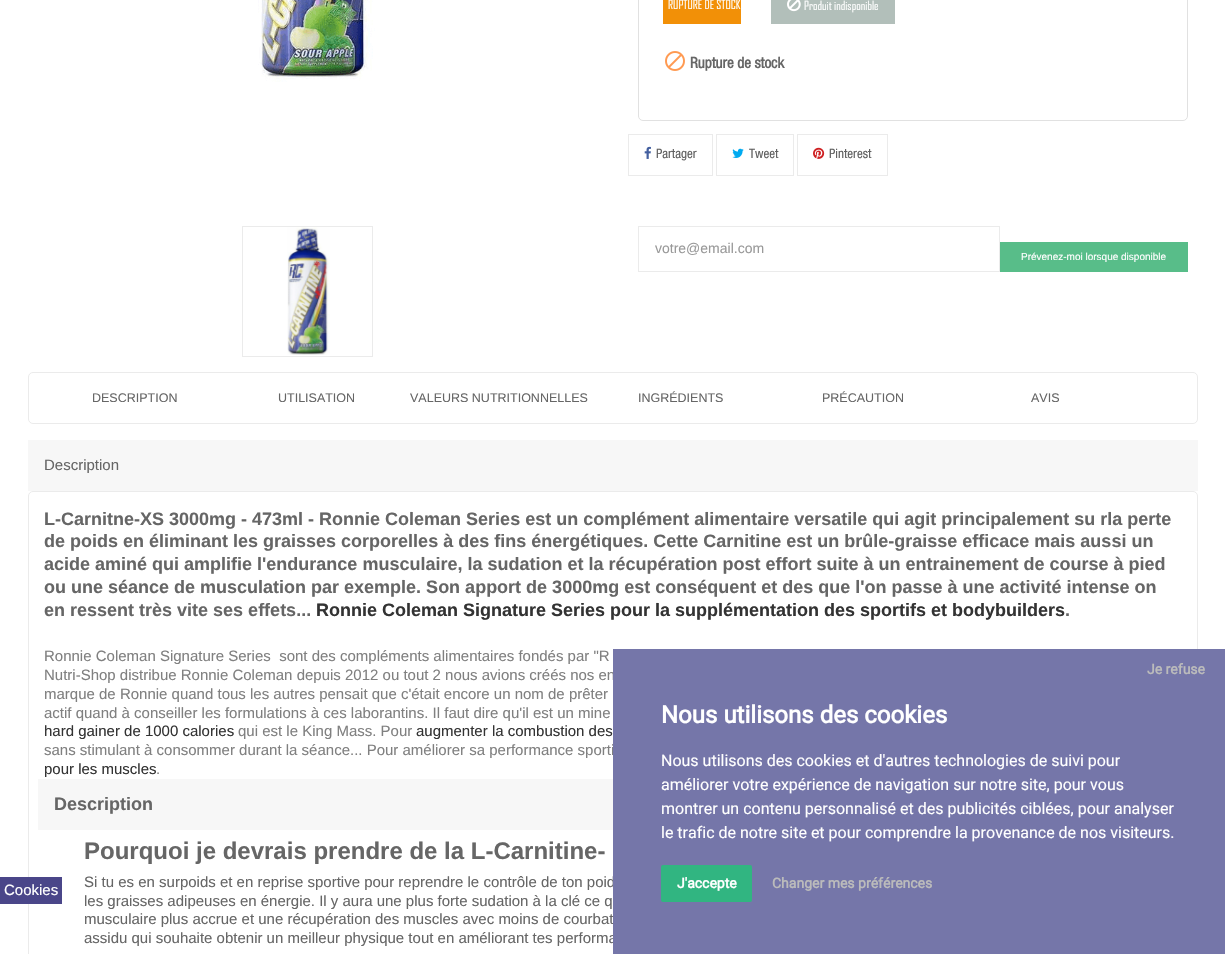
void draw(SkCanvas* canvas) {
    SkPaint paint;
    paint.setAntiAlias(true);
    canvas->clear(0xFFFFFFFF);
    canvas->drawImageRect(SkImages::DeferredFromEncodedData(SkData::MakeFromFileName("img1.png")), SkRect::MakeXYWH(258, 0, 117, 82), SkSamplingOptions());
    paint.setStyle(SkPaint::kStroke_Style);
    paint.setStrokeWidth(1);
    paint.setColor(0xFFEBEBEB);
    canvas->drawRect(SkRect::MakeXYWH(242.5f, 226.5f, 130, 130), paint);
    canvas->drawImageRect(SkImages::DeferredFromEncodedData(SkData::MakeFromFileName("img2.png")), SkRect::MakeXYWH(287, 227, 43, 128), SkSamplingOptions());
    paint.setColor(0xFFE1E1E1);
    canvas->drawRoundRect(SkRect::MakeXYWH(638.5f, -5.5f, 549, 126), 4.5f, 4.5f, paint);
    paint.setStyle(SkPaint::kFill_Style);
    paint.setColor(0xFFF29007);
    canvas->drawRect(SkRect::MakeXYWH(663, 0, 78, 24), paint);
    SkFont font1(fontMgr->matchFamilyStyle("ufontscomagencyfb", SkFontStyle::Normal()), 12);
    font1.setSubpixel(true);
    paint.setColor(0xFFFFFFFF);
    canvas->drawString("RUPTURE DE STOCK", 668, 9, font1, paint);
    paint.setColor(0xFFB2BFBA);
    canvas->drawRect(SkRect::MakeXYWH(771, 0, 124, 24), paint);
    canvas->drawImageRect(SkImages::DeferredFromEncodedData(SkData::MakeFromFileName("img3.png")), SkRect::MakeXYWH(787, 0, 14, 12), SkSamplingOptions());
    paint.setColor(0xFFFFFFFF);
    canvas->drawString("Produit indisponible", 804, 10, font1, paint);
    canvas->drawImageRect(SkImages::DeferredFromEncodedData(SkData::MakeFromFileName("img4.png")), SkRect::MakeXYWH(665, 51, 20, 20), SkSamplingOptions());
    SkFont font2(fontMgr->matchFamilyStyle("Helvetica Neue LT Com", SkFontStyle::Bold()), 15);
    font2.setSubpixel(true);
    paint.setColor(0xFF666666);
    canvas->drawString("Rupture de stock", 690, 68, font2, paint);
    paint.setStyle(SkPaint::kStroke_Style);
    paint.setColor(0xFFEBEBEB);
    canvas->drawRect(SkRect::MakeXYWH(628.5f, 134.5f, 84, 41), paint);
    canvas->drawImageRect(SkImages::DeferredFromEncodedData(SkData::MakeFromFileName("img5.png")), SkRect::MakeXYWH(644, 146, 7, 13), SkSamplingOptions());
    SkFont font3(fontMgr->matchFamilyStyle("Helvetica Neue LT Com", SkFontStyle::Normal()), 13);
    font3.setSubpixel(true);
    paint.setStyle(SkPaint::kFill_Style);
    paint.setColor(0xFF606060);
    canvas->drawString("Partager", 656, 158, font3, paint);
    paint.setStyle(SkPaint::kStroke_Style);
    paint.setColor(0xFFEBEBEB);
    canvas->drawRect(SkRect::MakeXYWH(716.5f, 134.5f, 77, 41), paint);
    canvas->drawImageRect(SkImages::DeferredFromEncodedData(SkData::MakeFromFileName("img6.png")), SkRect::MakeXYWH(732, 148, 12, 10), SkSamplingOptions());
    paint.setStyle(SkPaint::kFill_Style);
    paint.setColor(0xFF606060);
    canvas->drawString("Tweet", 749, 158, font3, paint);
    paint.setStyle(SkPaint::kStroke_Style);
    paint.setColor(0xFFEBEBEB);
    canvas->drawRect(SkRect::MakeXYWH(797.5f, 134.5f, 90, 41), paint);
    canvas->drawImageRect(SkImages::DeferredFromEncodedData(SkData::MakeFromFileName("img7.png")), SkRect::MakeXYWH(813, 147, 12, 12), SkSamplingOptions());
    paint.setStyle(SkPaint::kFill_Style);
    paint.setColor(0xFF606060);
    canvas->drawString("Pinterest", 829, 158, font3, paint);
    paint.setStyle(SkPaint::kStroke_Style);
    paint.setColor(0xFFEBEBEB);
    canvas->drawRect(SkRect::MakeXYWH(638.5f, 226.5f, 361, 45), paint);
    SkFont font4(fontMgr->matchFamilyStyle("Liberation Sans", SkFontStyle::Normal()), 14);
    font4.setSubpixel(true);
    paint.setStyle(SkPaint::kFill_Style);
    paint.setColor(0xFF999999);
    canvas->drawString("votre@email.com", 655, 253, font4, paint);
    paint.setColor(0xFF58BD89);
    canvas->drawRect(SkRect::MakeXYWH(1000, 242, 188, 30), paint);
    SkFont font5(fontMgr->matchFamilyStyle("Liberation Sans", SkFontStyle::Normal()), 10);
    font5.setSubpixel(true);
    paint.setColor(0xFFFFFFFF);
    canvas->drawString("Prévenez-moi lorsque disponible", 1021, 260, font5, paint);
    paint.setStyle(SkPaint::kStroke_Style);
    paint.setColor(0xFFEBEBEB);
    canvas->drawRoundRect(SkRect::MakeXYWH(28.5f, 372.5f, 1169, 51), 4.5f, 4.5f, paint);
    SkFont font6(fontMgr->matchFamilyStyle("Liberation Sans", SkFontStyle::Normal()), 12.5f);
    font6.setSubpixel(true);
    paint.setStyle(SkPaint::kFill_Style);
    paint.setColor(0xFF666666);
    canvas->drawString("DESCRIPTION", 92, 402, font6, paint);
    canvas->drawString("UTILISATION", 278, 402, font6, paint);
    canvas->drawString("VALEURS NUTRITIONNELLES", 410, 402, font6, paint);
    canvas->drawString("INGRÉDIENTS", 638, 402, font6, paint);
    canvas->drawString("PRÉCAUTION", 822, 402, font6, paint);
    canvas->drawString("AVIS", 1031, 402, font6, paint);
    paint.setColor(0xFFF7F7F7);
    canvas->drawRect(SkRect::MakeXYWH(28, 440, 1170, 51), paint);
    SkFont font7(fontMgr->matchFamilyStyle("Liberation Sans", SkFontStyle::Normal()), 15);
    font7.setSubpixel(true);
    paint.setColor(0xFF666666);
    canvas->drawString("Description", 44, 470, font7, paint);
    paint.setStyle(SkPaint::kStroke_Style);
    paint.setColor(0xFFEBEBEB);
    canvas->drawRoundRect(SkRect::MakeXYWH(28.5f, 491.5f, 1169, 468), 4.5f, 4.5f, paint);
    SkFont font8(fontMgr->matchFamilyStyle("Liberation Sans", SkFontStyle::Bold()), 18);
    font8.setSubpixel(true);
    paint.setStyle(SkPaint::kFill_Style);
    paint.setColor(0xFF666666);
    canvas->drawString("L-Carnitne-XS 3000mg - 473ml - Ronnie Coleman Series est un complément alimentaire versatile qui agit principalement su rla perte", 44, 525, font8, paint);
    canvas->drawString("de poids en éliminant les graisses corporelles à des fins énergétiques. Cette Carnitine est un brûle-graisse efficace mais aussi un", 44, 547, font8, paint);
    canvas->drawString("acide aminé qui amplifie l'endurance musculaire, la sudation et la récupération post effort suite à un entrainement de course à pied", 44, 570, font8, paint);
    canvas->drawString("ou une séance de musculation par exemple. Son apport de 3000mg est conséquent et des que l'on passe à une activité intense on", 44, 593, font8, paint);
    canvas->drawString("en ressent très vite ses effets...", 44, 616, font8, paint);
    paint.setColor(0xFF333333);
    canvas->drawString("Ronnie Coleman Signature Series pour la supplémentation des sportifs et bodybuilders", 316, 616, font8, paint);
    paint.setColor(0xFF666666);
    canvas->drawString(".", 1065, 616, font8, paint);
    paint.setColor(0xFF808080);
    canvas->drawString("Ronnie Coleman Signature Series  sont des compléments alimentaires fondés par \"R", 44, 661, font7, paint);
    canvas->drawString("Nutri-Shop distribue Ronnie Coleman depuis 2012 ou tout 2 nous avions créés nos en", 44, 680, font7, paint);
    canvas->drawString("marque de Ronnie quand tous les autres pensait que c'était encore un nom de prêter", 44, 699, font7, paint);
    canvas->drawString("actif quand à conseiller les formulations à ces laborantins. Il faut dire qu'il est un mine", 44, 718, font7, paint);
    paint.setColor(0xFF333333);
    canvas->drawString("hard gainer de 1000 calories", 44, 736, font7, paint);
    paint.setColor(0xFF808080);
    canvas->drawString("qui est le King Mass. Pour", 238, 736, font7, paint);
    paint.setColor(0xFF333333);
    canvas->drawString("augmenter la combustion des", 416, 736, font7, paint);
    paint.setColor(0xFF808080);
    canvas->drawString("sans stimulant à consommer durant la séance... Pour améliorer sa performance sporti", 44, 755, font7, paint);
    paint.setColor(0xFF333333);
    canvas->drawString("pour les muscles", 44, 774, font7, paint);
    paint.setColor(0xFF808080);
    canvas->drawString(".", 156, 774, font7, paint);
    paint.setColor(0xFFF7F7F7);
    canvas->drawRect(SkRect::MakeXYWH(38, 779, 575, 51), paint);
    paint.setColor(0xFF666666);
    canvas->drawString("Description", 54, 810, font8, paint);
    SkFont font9(fontMgr->matchFamilyStyle("Liberation Sans", SkFontStyle::Bold()), 24);
    font9.setSubpixel(true);
    canvas->drawString("Pourquoi je devrais prendre de la L-Carnitine-", 84, 859, font9, paint);
    canvas->drawString("Si tu es en surpoids et en reprise sportive pour reprendre le contrôle de ton poid", 84, 887, font7, paint);
    canvas->drawString("les graisses adipeuses en énergie. Il y aura une plus forte sudation à la clé ce q", 84, 906, font7, paint);
    canvas->drawString("musculaire plus accrue et une récupération des muscles avec moins de courbat", 84, 924, font7, paint);
    canvas->drawString("assidu qui souhaite obtenir un meilleur physique tout en améliorant tes performa", 84, 943, font7, paint);
    paint.setColor(0xFF4A4689);
    canvas->drawRect(SkRect::MakeXYWH(0, 877, 62, 27), paint);
    paint.setColor(0xFFFFFFFF);
    canvas->drawString("Cookies", 4, 895, font7, paint);
    paint.setColor(0xFF7576A9);
    canvas->drawRect(SkRect::MakeXYWH(613, 649, 612, 305), paint);
    SkFont font10(fontMgr->matchFamilyStyle("Roboto", SkFontStyle::Bold()), 14);
    font10.setSubpixel(true);
    paint.setColor(0xFFBBBBBB);
    canvas->drawString("Je refuse", 1147, 674, font10, paint);
    paint.setColor(0xFF31B581);
    canvas->drawRoundRect(SkRect::MakeXYWH(661, 865, 91, 37), 2, 2, paint);
    paint.setColor(0xFFFFFFFF);
    canvas->drawString("J'accepte", 677, 888, font10, paint);
    paint.setColor(0xFFBBBBBB);
    canvas->drawString("Changer mes préférences", 772, 888, font10, paint);
    SkFont font11(fontMgr->matchFamilyStyle("Roboto", SkFontStyle::Bold()), 24);
    font11.setSubpixel(true);
    paint.setColor(0xFFFFFFFF);
    canvas->drawString("Nous utilisons des cookies", 661, 723, font11, paint);
    SkFont font12(fontMgr->matchFamilyStyle("Roboto", SkFontStyle::Normal()), 16);
    font12.setSubpixel(true);
    canvas->drawString("Nous utilisons des cookies et d'autres technologies de suivi pour", 661, 766, font12, paint);
    canvas->drawString("améliorer votre expérience de navigation sur notre site, pour vous", 661, 790, font12, paint);
    canvas->drawString("montrer un contenu personnalisé et des publicités ciblées, pour analyser", 661, 814, font12, paint);
    canvas->drawString("le trafic de notre site et pour comprendre la provenance de nos visiteurs.", 661, 838, font12, paint);
}
